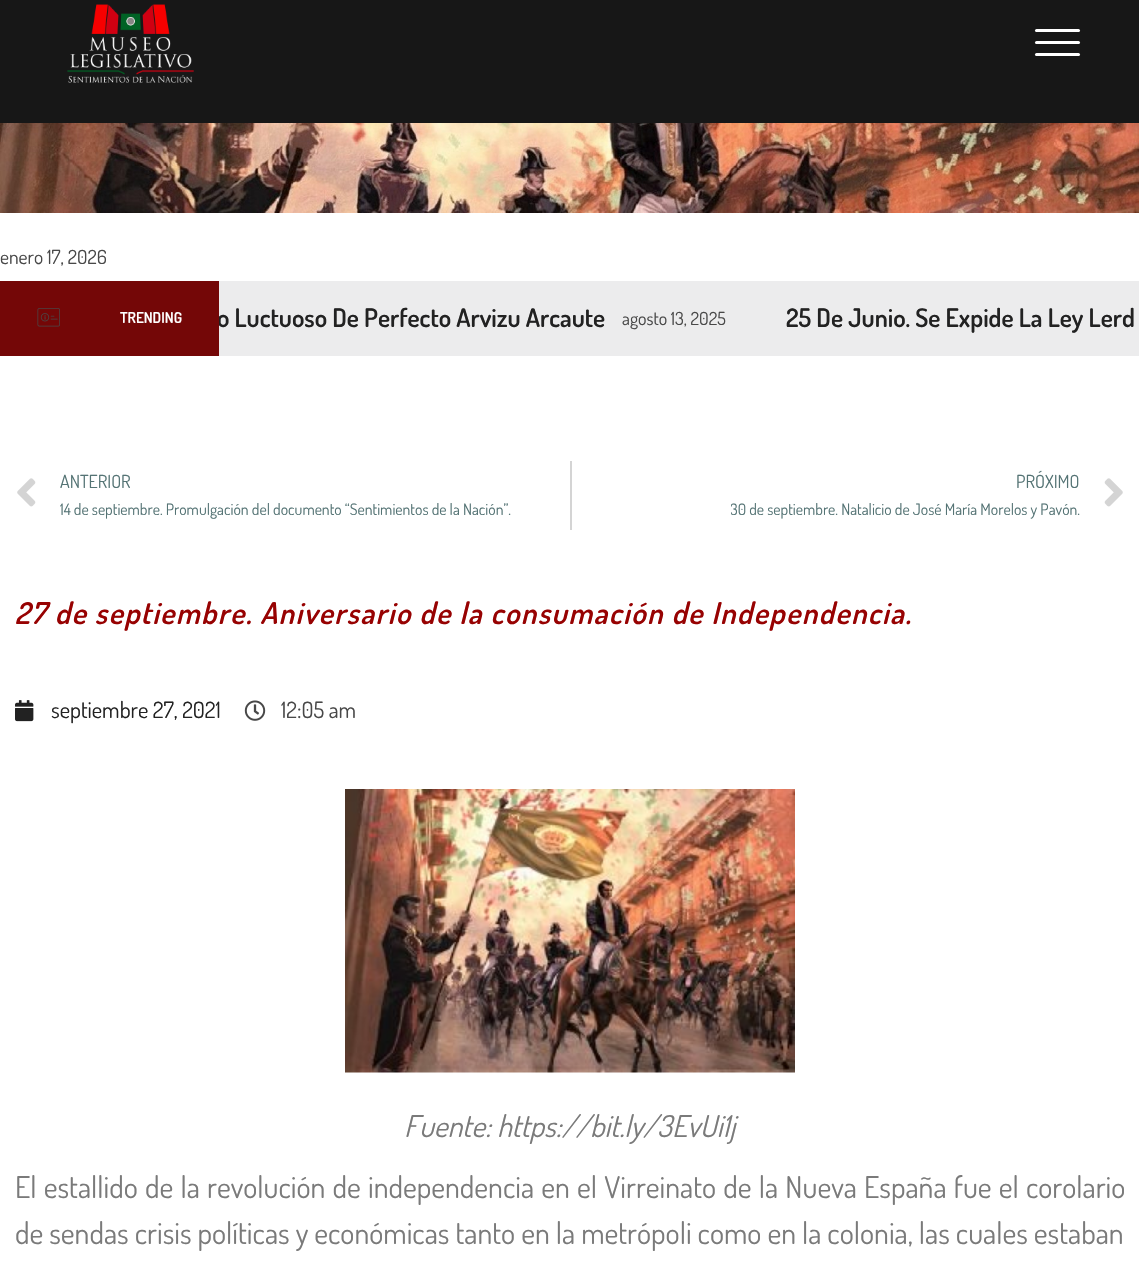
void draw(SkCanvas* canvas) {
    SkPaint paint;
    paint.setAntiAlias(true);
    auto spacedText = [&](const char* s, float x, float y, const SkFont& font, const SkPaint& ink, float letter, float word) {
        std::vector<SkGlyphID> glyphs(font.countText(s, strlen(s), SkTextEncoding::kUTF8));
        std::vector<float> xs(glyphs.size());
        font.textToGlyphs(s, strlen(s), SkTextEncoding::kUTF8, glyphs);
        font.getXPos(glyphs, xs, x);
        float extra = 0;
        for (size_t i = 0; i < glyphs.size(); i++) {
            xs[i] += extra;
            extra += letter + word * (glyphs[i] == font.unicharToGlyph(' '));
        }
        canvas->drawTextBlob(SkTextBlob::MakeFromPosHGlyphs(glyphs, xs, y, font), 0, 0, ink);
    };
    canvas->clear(0xFFFFFFFF);
    paint.setColor(0xFF171717);
    canvas->drawRect(SkRect::MakeXYWH(0, 0, 1139, 123), paint);
    canvas->drawImageRect(SkImages::DeferredFromEncodedData(SkData::MakeFromFileName("img1.png")), SkRect::MakeXYWH(67, 4, 127, 79), SkSamplingOptions());
    paint.setColor(0xFFFFFFFF);
    canvas->drawRoundRect(SkRect::MakeXYWH(1035, 41, 45, 3), 1.5f, 1.5f, paint);
    canvas->drawRoundRect(SkRect::MakeXYWH(1035, 29, 45, 3), 1.5f, 1.5f, paint);
    canvas->drawRoundRect(SkRect::MakeXYWH(1035, 53, 45, 3), 1.5f, 1.5f, paint);
    canvas->drawImageRect(SkImages::DeferredFromEncodedData(SkData::MakeFromFileName("img2.png")), SkRect::MakeXYWH(0, 123, 1139, 90), SkSamplingOptions());
    SkFont font1(fontMgr->matchFamilyStyle("Dosis", SkFontStyle::Normal()), 19.5f);
    font1.setSubpixel(true);
    paint.setColor(0xFF484848);
    canvas->drawString("enero 17, 2026", 0, 264, font1, paint);
    paint.setColor(0xFFECECED);
    canvas->drawRect(SkRect::MakeXYWH(219, 281, 920, 75), paint);
    paint.setColor(0xFF740707);
    canvas->drawRect(SkRect::MakeXYWH(0, 281, 219, 75), paint);
    canvas->drawImageRect(SkImages::DeferredFromEncodedData(SkData::MakeFromFileName("img3.png")), SkRect::MakeXYWH(37, 308, 23, 19), SkSamplingOptions());
    SkFont font2(fontMgr->matchFamilyStyle("Dosis", SkFontStyle(600, SkFontStyle::kNormal_Width, SkFontStyle::kUpright_Slant)), 15);
    font2.setSubpixel(true);
    paint.setColor(0xFFFFFFFF);
    canvas->drawString("TRENDING", 120, 323, font2, paint);
    canvas->save();
    canvas->clipRect(SkRect::MakeXYWH(219, 281, 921, 75));
    SkFont font3(fontMgr->matchFamilyStyle("Dosis", SkFontStyle(600, SkFontStyle::kNormal_Width, SkFontStyle::kUpright_Slant)), 25.5f);
    font3.setSubpixel(true);
    paint.setColor(0xFF222222);
    canvas->drawString("o Luctuoso De Perfecto Arvizu Arcaute", 217, 327, font3, paint);
    canvas->restore();
    SkFont font4(fontMgr->matchFamilyStyle("Dosis", SkFontStyle::Normal()), 18);
    font4.setSubpixel(true);
    paint.setColor(0xFF484848);
    canvas->drawString("agosto 13, 2025", 622, 325, font4, paint);
    paint.setColor(0xFF222222);
    canvas->drawString("25 De Junio. Se Expide La Ley Lerd", 786, 327, font3, paint);
    canvas->drawImageRect(SkImages::DeferredFromEncodedData(SkData::MakeFromFileName("img4.png")), SkRect::MakeXYWH(17, 478, 19, 29), SkSamplingOptions());
    paint.setColor(0xFF547374);
    canvas->drawString("ANTERIOR", 60, 488, font4, paint);
    SkFont font5(fontMgr->matchFamilyStyle("Dosis", SkFontStyle::Normal()), 15.75f);
    font5.setSubpixel(true);
    canvas->drawString("14 de septiembre. Promulgación del documento “Sentimientos de la Nación”.", 60, 515, font5, paint);
    paint.setColor(0xFFD4D4D4);
    canvas->drawRect(SkRect::MakeXYWH(570, 461, 2, 69), paint);
    paint.setColor(0xFF547374);
    canvas->drawString("PRÓXIMO", 1016, 488, font4, paint);
    canvas->save();
    canvas->clipRect(SkRect::MakeXYWH(731, 497, 349, 24));
    canvas->drawString("30 de septiembre. Natalicio de José María Morelos y Pavón.", 730, 515, font5, paint);
    canvas->restore();
    canvas->drawImageRect(SkImages::DeferredFromEncodedData(SkData::MakeFromFileName("img5.png")), SkRect::MakeXYWH(1104, 478, 19, 29), SkSamplingOptions());
    SkFont font6(fontMgr->matchFamilyStyle("Dosis", SkFontStyle(600, SkFontStyle::kNormal_Width, SkFontStyle::kItalic_Slant)), 30);
    font6.setSubpixel(true);
    paint.setColor(0xFF970202);
    spacedText("27 de septiembre. Aniversario de la consumación de Independencia.", 15, 624, font6, paint, 1.5f, 0);
    canvas->drawImageRect(SkImages::DeferredFromEncodedData(SkData::MakeFromFileName("img6.png")), SkRect::MakeXYWH(15, 700, 19, 22), SkSamplingOptions());
    SkFont font7(fontMgr->matchFamilyStyle("Dosis", SkFontStyle::Normal()), 22.5f);
    font7.setSubpixel(true);
    paint.setColor(0xFF222222);
    canvas->drawString("septiembre 27, 2021", 51, 718, font7, paint);
    canvas->drawImageRect(SkImages::DeferredFromEncodedData(SkData::MakeFromFileName("img7.png")), SkRect::MakeXYWH(244, 700, 22, 21), SkSamplingOptions());
    paint.setColor(0xFF484848);
    canvas->drawString("12:05 am", 281, 718, font7, paint);
    canvas->drawImageRect(SkImages::DeferredFromEncodedData(SkData::MakeFromFileName("img8.png")), SkRect::MakeXYWH(345, 789, 450, 284), SkSamplingOptions());
    SkFont font8(fontMgr->matchFamilyStyle("Dosis", SkFontStyle::Italic()), 30);
    font8.setSubpixel(true);
    paint.setColor(0xFF7A7A7A);
    canvas->drawString("Fuente: https://bit.ly/3EvUi1j", 404, 1137, font8, paint);
    SkFont font9(fontMgr->matchFamilyStyle("Dosis", SkFontStyle::Normal()), 30);
    font9.setSubpixel(true);
    spacedText("El estallido de la revolución de independencia en el Virreinato de la Nueva España fue el corolario", 15, 1198, font9, paint, 0, 1.2f);
    canvas->drawString("de sendas crisis políticas y económicas tanto en la metrópoli como en la colonia, las cuales estaban", 15, 1244, font9, paint);
}
